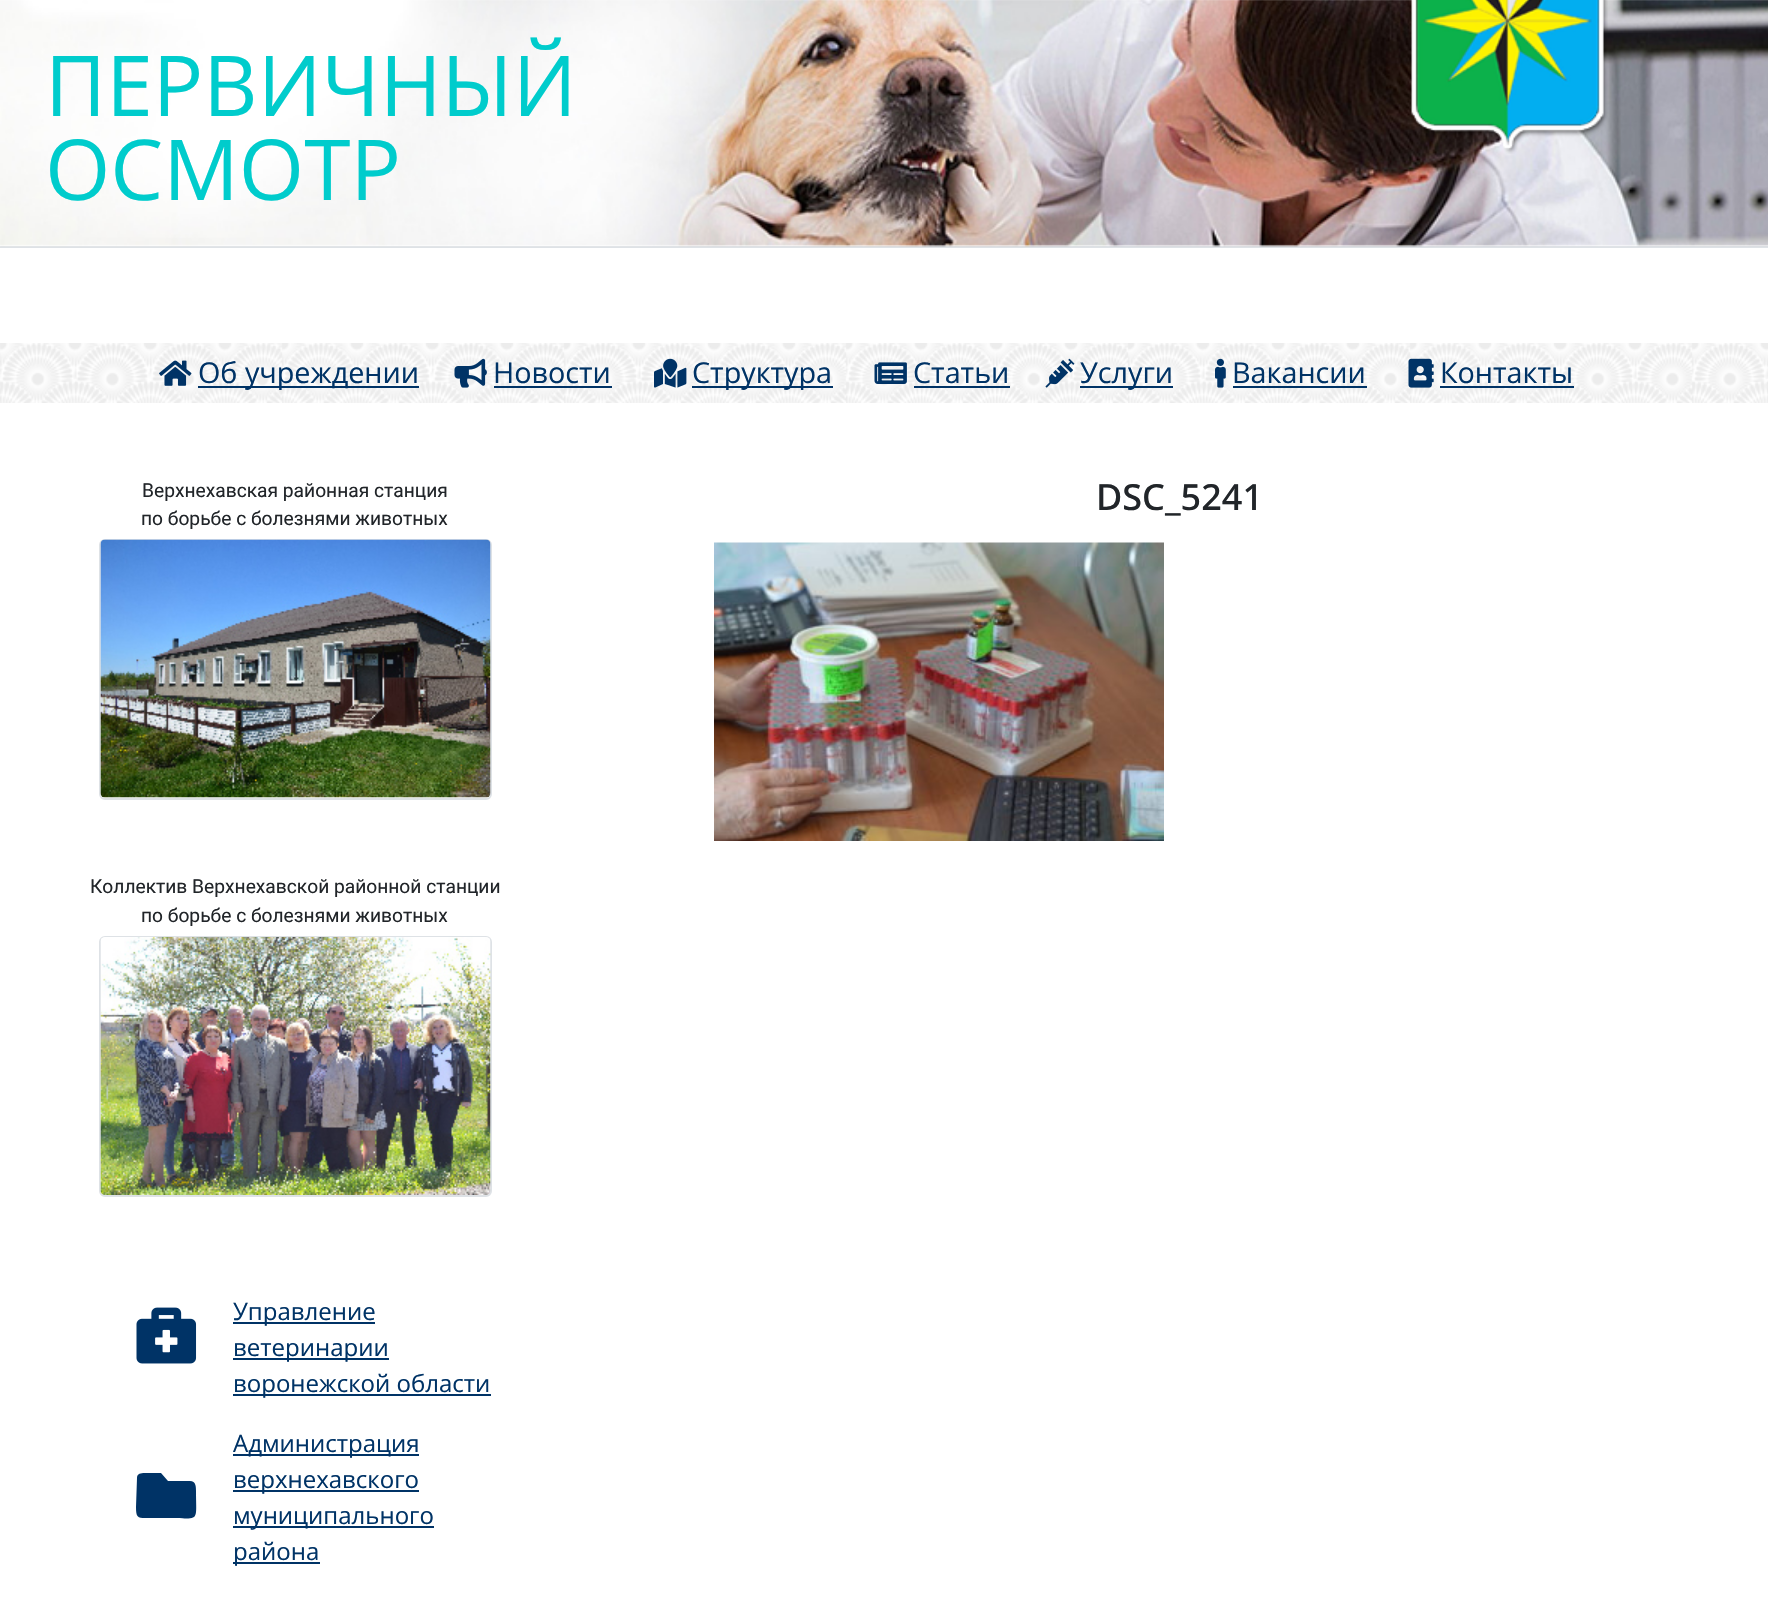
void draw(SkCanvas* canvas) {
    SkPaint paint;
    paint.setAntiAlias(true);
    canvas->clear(0xFFFFFFFF);
    paint.setColor(0xFFDEE2E6);
    canvas->drawRect(SkRect::MakeXYWH(0, 246, 1768, 2), paint);
    canvas->drawImageRect(SkImages::DeferredFromEncodedData(SkData::MakeFromFileName("img2.png")), SkRect::MakeXYWH(0, 0, 1768, 247), SkSamplingOptions());
    canvas->drawImageRect(SkImages::DeferredFromEncodedData(SkData::MakeFromFileName("img1.png")), SkRect::MakeXYWH(1411, 0, 197, 154), SkSamplingOptions());
    SkFont font1(fontMgr->matchFamilyStyle("Open Sans", SkFontStyle::Normal()), 84);
    font1.setSubpixel(true);
    paint.setColor(0xFF00CCCC);
    canvas->drawString("ПЕРВИЧНЫЙ", 45, 116, font1, paint);
    canvas->drawString("ОСМОТР", 45, 200, font1, paint);
    canvas->drawImageRect(SkImages::DeferredFromEncodedData(SkData::MakeFromFileName("img3.png")), SkRect::MakeXYWH(0, 343, 1768, 60), SkSamplingOptions());
    canvas->drawImageRect(SkImages::DeferredFromEncodedData(SkData::MakeFromFileName("img4.png")), SkRect::MakeXYWH(159, 360, 33, 26), SkSamplingOptions());
    paint.setColor(0xFF003366);
    canvas->drawRect(SkRect::MakeXYWH(198, 386, 221, 2), paint);
    SkFont font2(fontMgr->matchFamilyStyle("Open Sans", SkFontStyle::Normal()), 28.75f);
    font2.setSubpixel(true);
    canvas->drawString("Об учреждении", 198, 383, font2, paint);
    canvas->drawImageRect(SkImages::DeferredFromEncodedData(SkData::MakeFromFileName("img5.png")), SkRect::MakeXYWH(454, 358, 33, 30), SkSamplingOptions());
    canvas->drawString("Новости", 493, 383, font2, paint);
    canvas->drawRect(SkRect::MakeXYWH(494, 386, 118, 2), paint);
    canvas->drawImageRect(SkImages::DeferredFromEncodedData(SkData::MakeFromFileName("img6.png")), SkRect::MakeXYWH(654, 358, 33, 30), SkSamplingOptions());
    canvas->drawRect(SkRect::MakeXYWH(692, 386, 141, 2), paint);
    canvas->drawString("Структура", 692, 383, font2, paint);
    canvas->drawImageRect(SkImages::DeferredFromEncodedData(SkData::MakeFromFileName("img7.png")), SkRect::MakeXYWH(874, 362, 33, 22), SkSamplingOptions());
    canvas->drawString("Статьи", 913, 383, font2, paint);
    canvas->drawRect(SkRect::MakeXYWH(914, 386, 96, 2), paint);
    canvas->drawImageRect(SkImages::DeferredFromEncodedData(SkData::MakeFromFileName("img8.png")), SkRect::MakeXYWH(1045, 358, 30, 30), SkSamplingOptions());
    canvas->drawRect(SkRect::MakeXYWH(1080, 386, 93, 2), paint);
    canvas->drawString("Услуги", 1080, 383, font2, paint);
    canvas->drawImageRect(SkImages::DeferredFromEncodedData(SkData::MakeFromFileName("img9.png")), SkRect::MakeXYWH(1215, 358, 11, 30), SkSamplingOptions());
    canvas->drawString("Вакансии", 1232, 383, font2, paint);
    canvas->drawRect(SkRect::MakeXYWH(1233, 386, 134, 2), paint);
    canvas->drawImageRect(SkImages::DeferredFromEncodedData(SkData::MakeFromFileName("img10.png")), SkRect::MakeXYWH(1408, 358, 26, 30), SkSamplingOptions());
    canvas->drawString("Контакты", 1440, 383, font2, paint);
    canvas->drawRect(SkRect::MakeXYWH(1440, 386, 134, 2), paint);
    SkFont font3(fontMgr->matchFamilyStyle("Roboto", SkFontStyle::Normal()), 19.2f);
    font3.setSubpixel(true);
    paint.setColor(0xFF212529);
    canvas->drawString("Верхнехавская районная станция", 142, 497, font3, paint);
    canvas->drawString("по борьбе с болезнями животных", 141, 525, font3, paint);
    paint.setStyle(SkPaint::kStroke_Style);
    paint.setStrokeWidth(2);
    paint.setColor(0xFFDEE2E6);
    canvas->drawRoundRect(SkRect::MakeXYWH(100, 540, 391, 259), 5, 5, paint);
    canvas->drawImageRect(SkImages::DeferredFromEncodedData(SkData::MakeFromFileName("img11.png")), SkRect::MakeXYWH(100, 539, 391, 259), SkSamplingOptions());
    paint.setStyle(SkPaint::kFill_Style);
    paint.setColor(0xFF212529);
    canvas->drawString("Коллектив Верхнехавской районной станции", 90, 893, font3, paint);
    canvas->drawString("по борьбе с болезнями животных", 141, 922, font3, paint);
    paint.setStyle(SkPaint::kStroke_Style);
    paint.setColor(0xFFDEE2E6);
    canvas->drawRoundRect(SkRect::MakeXYWH(100, 937, 391, 259), 5, 5, paint);
    canvas->drawImageRect(SkImages::DeferredFromEncodedData(SkData::MakeFromFileName("img12.png")), SkRect::MakeXYWH(100, 937, 391, 258), SkSamplingOptions());
    canvas->drawImageRect(SkImages::DeferredFromEncodedData(SkData::MakeFromFileName("img13.png")), SkRect::MakeXYWH(136, 1307, 61, 57), SkSamplingOptions());
    paint.setStyle(SkPaint::kFill_Style);
    paint.setColor(0xFF003366);
    canvas->drawRect(SkRect::MakeXYWH(233, 1322, 142, 2), paint);
    SkFont font4(fontMgr->matchFamilyStyle("Open Sans", SkFontStyle::Normal()), 24);
    font4.setSubpixel(true);
    canvas->drawString("Управление", 233, 1320, font4, paint);
    canvas->drawRect(SkRect::MakeXYWH(233, 1358, 156, 2), paint);
    canvas->drawString("ветеринарии", 233, 1356, font4, paint);
    canvas->drawRect(SkRect::MakeXYWH(233, 1394, 258, 2), paint);
    canvas->drawString("воронежской области", 233, 1392, font4, paint);
    canvas->drawPath(SkPathBuilder().moveTo(190, 1481).cubicTo(196, 1481, 196, 1487, 196, 1491).cubicTo(196, 1524, 201, 1518, 166, 1518).lineTo(150, 1518).cubicTo(138, 1518, 136, 1519, 136, 1507).lineTo(137, 1478).cubicTo(137, 1472, 144, 1473, 148, 1473).lineTo(161, 1473).lineTo(168, 1481).close().detach(), paint);
    canvas->drawRect(SkRect::MakeXYWH(233, 1454, 186, 2), paint);
    canvas->drawString("Администрация", 233, 1452, font4, paint);
    canvas->drawRect(SkRect::MakeXYWH(233, 1490, 186, 2), paint);
    canvas->drawString("верхнехавского", 233, 1488, font4, paint);
    canvas->drawRect(SkRect::MakeXYWH(233, 1526, 201, 2), paint);
    canvas->drawString("муниципального", 233, 1524, font4, paint);
    canvas->drawRect(SkRect::MakeXYWH(233, 1562, 87, 2), paint);
    canvas->drawString("района", 233, 1560, font4, paint);
    SkFont font5(fontMgr->matchFamilyStyle("Noto Sans", SkFontStyle(500, SkFontStyle::kNormal_Width, SkFontStyle::kUpright_Slant)), 36);
    font5.setSubpixel(true);
    paint.setColor(0xFF212529);
    canvas->drawString("DSC_5241", 1096, 510, font5, paint);
    canvas->drawImageRect(SkImages::DeferredFromEncodedData(SkData::MakeFromFileName("img14.png")), SkRect::MakeXYWH(714, 542, 450, 299), SkSamplingOptions());
}
